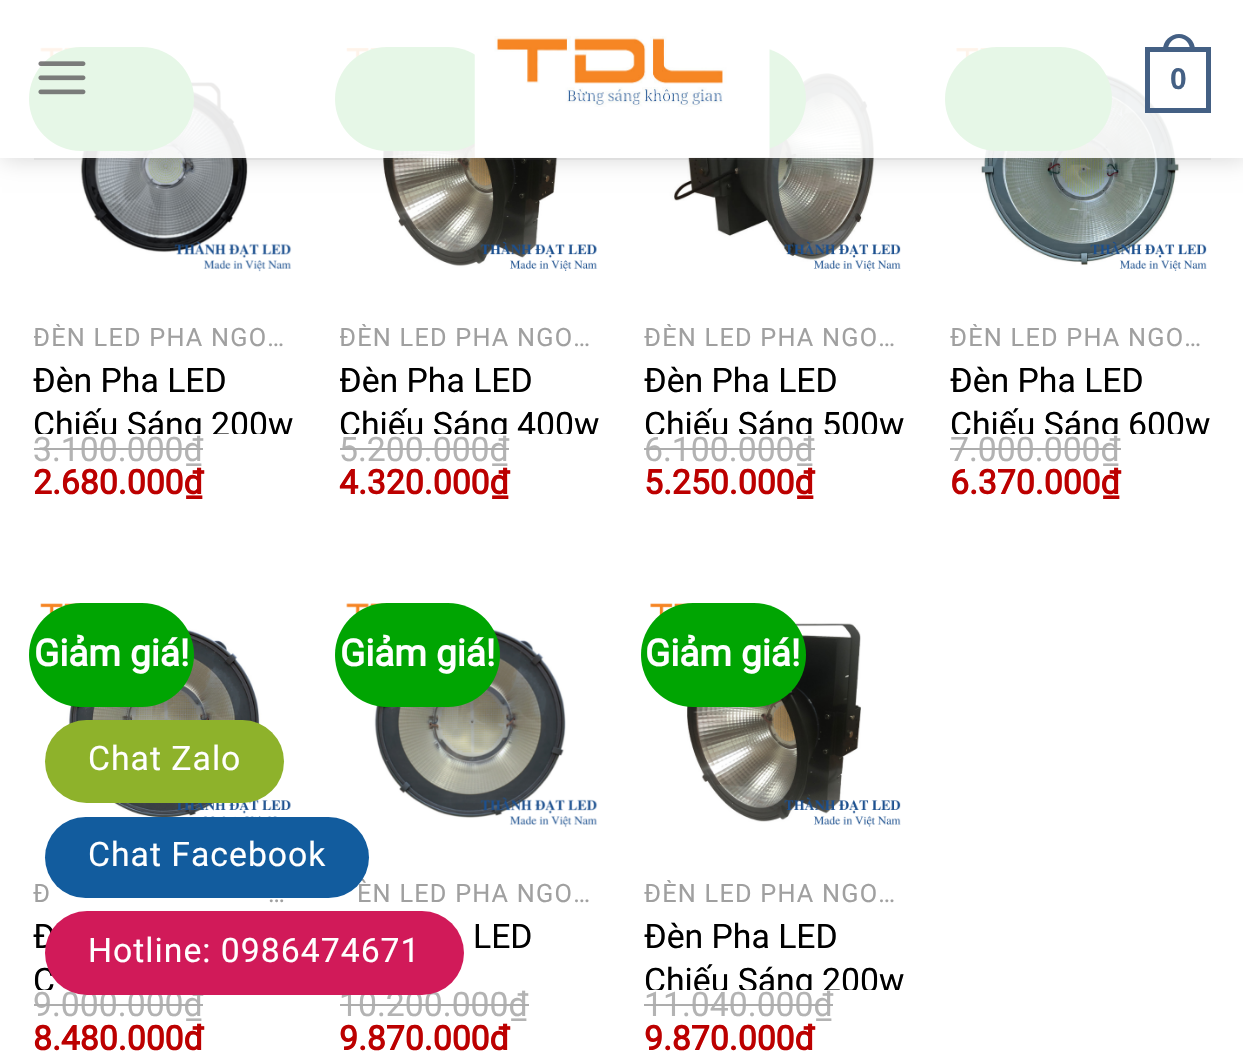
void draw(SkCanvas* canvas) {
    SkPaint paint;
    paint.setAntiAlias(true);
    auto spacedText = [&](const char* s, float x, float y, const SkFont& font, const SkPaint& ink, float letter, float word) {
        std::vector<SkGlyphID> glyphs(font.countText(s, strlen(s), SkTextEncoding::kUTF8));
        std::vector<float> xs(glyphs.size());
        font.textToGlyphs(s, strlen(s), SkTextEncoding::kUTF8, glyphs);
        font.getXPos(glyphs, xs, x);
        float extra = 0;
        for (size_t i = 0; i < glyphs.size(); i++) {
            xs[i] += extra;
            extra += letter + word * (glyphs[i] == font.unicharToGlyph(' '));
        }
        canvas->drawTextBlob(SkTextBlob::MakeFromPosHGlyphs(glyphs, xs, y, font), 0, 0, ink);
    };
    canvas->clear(0xFFFFFFFF);
    canvas->drawImageRect(SkImages::DeferredFromEncodedData(SkData::MakeFromFileName("img3.png")), SkRect::MakeXYWH(40, 47, 252, 225), SkSamplingOptions());
    paint.setColor(0xFF00A502);
    canvas->drawRoundRect(SkRect::MakeXYWH(29, 47, 165, 104), 52, 52, paint);
    canvas->drawImageRect(SkImages::DeferredFromEncodedData(SkData::MakeFromFileName("img4.png")), SkRect::MakeXYWH(346, 47, 252, 224), SkSamplingOptions());
    canvas->drawRoundRect(SkRect::MakeXYWH(335, 47, 165, 104), 52, 52, paint);
    canvas->drawImageRect(SkImages::DeferredFromEncodedData(SkData::MakeFromFileName("img5.png")), SkRect::MakeXYWH(650, 47, 251, 224), SkSamplingOptions());
    canvas->drawRoundRect(SkRect::MakeXYWH(641, 47, 165, 104), 52, 52, paint);
    canvas->drawImageRect(SkImages::DeferredFromEncodedData(SkData::MakeFromFileName("img6.png")), SkRect::MakeXYWH(956, 47, 251, 224), SkSamplingOptions());
    canvas->drawRoundRect(SkRect::MakeXYWH(945, 47, 167, 104), 52, 52, paint);
    canvas->save();
    canvas->clipPath(SkPathBuilder(SkPathFillType::kEvenOdd).moveTo(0, 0).lineTo(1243, 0).lineTo(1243, 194).lineTo(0, 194).close().moveTo(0, 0).lineTo(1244, 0).lineTo(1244, 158).lineTo(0, 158).close().detach(), true);
    paint.setColor(0x26000000);
    paint.setMaskFilter(SkMaskFilter::MakeBlur(kNormal_SkBlurStyle, 11));
    canvas->drawRect(SkRect::MakeXYWH(2, 2, 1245, 158), paint);
    paint.setMaskFilter(nullptr);
    canvas->restore();
    paint.setColor(0xE6FFFFFF);
    canvas->drawRect(SkRect::MakeXYWH(0, 47, 1243, 111), paint);
    canvas->drawImageRect(SkImages::DeferredFromEncodedData(SkData::MakeFromFileName("img1.png")), SkRect::MakeXYWH(38, 61, 48, 34), SkSamplingOptions());
    canvas->drawImageRect(SkImages::DeferredFromEncodedData(SkData::MakeFromFileName("img2.png")), SkRect::MakeXYWH(474, 36, 296, 122), SkSamplingOptions());
    paint.setStyle(SkPaint::kStroke_Style);
    paint.setStrokeWidth(5);
    paint.setColor(0xFF446084);
    canvas->drawRect(SkRect::MakeXYWH(1147.5f, 49.5f, 61, 61), paint);
    paint.setStyle(SkPaint::kFill_Style);
    canvas->drawPath(SkPathBuilder(SkPathFillType::kEvenOdd).moveTo(1179, 34).cubicTo(1187.5f, 34, 1195, 41, 1195, 49.5f).lineTo(1195, 52).lineTo(1163, 52).lineTo(1163, 49.5f).cubicTo(1163, 41, 1170.5f, 34, 1179, 34).close().moveTo(1179, 38).cubicTo(1185, 38, 1190, 43.5f, 1190, 49.5f).lineTo(1190, 52).lineTo(1168, 52).lineTo(1168, 49.5f).cubicTo(1168, 43.5f, 1173, 38, 1179, 38).close().detach(), paint);
    SkFont font1(fontMgr->matchFamilyStyle("Liberation Sans", SkFontStyle::Bold()), 30);
    font1.setSubpixel(true);
    canvas->drawString("0", 1170, 89, font1, paint);
    paint.setColor(0x1A777777);
    canvas->drawRect(SkRect::MakeXYWH(34, 158, 1177, 2), paint);
    canvas->save();
    canvas->clipRect(SkRect::MakeXYWH(34, 324, 261, 29));
    SkFont font2(fontMgr->matchFamilyStyle("Roboto", SkFontStyle::Normal()), 25.25f);
    font2.setSubpixel(true);
    paint.setColor(0xFFA0A0A0);
    spacedText("ĐÈN LED PHA NGO…", 33, 346, font2, paint, 1.25f, 0);
    canvas->restore();
    SkFont font3(fontMgr->matchFamilyStyle("Roboto", SkFontStyle::Normal()), 33.75f);
    font3.setSubpixel(true);
    paint.setColor(0xFF000000);
    canvas->drawString("Đèn Pha LED", 33, 392, font3, paint);
    canvas->save();
    canvas->clipRect(SkRect::MakeXYWH(34, 322, 261, 112));
    canvas->drawString("Chiếu Sáng 200w", 33, 436, font3, paint);
    canvas->restore();
    paint.setColor(0xFFB3B3B3);
    canvas->drawString("3.100.000₫", 33, 461, font3, paint);
    paint.setColor(0xFFADADAD);
    canvas->drawRect(SkRect::MakeXYWH(34, 448, 169, 2), paint);
    SkFont font4(fontMgr->matchFamilyStyle("Roboto", SkFontStyle::Bold()), 33.75f);
    font4.setSubpixel(true);
    paint.setColor(0xFFBC0000);
    canvas->drawString("2.680.000₫", 33, 494, font4, paint);
    canvas->save();
    canvas->clipRect(SkRect::MakeXYWH(340, 324, 261, 29));
    paint.setColor(0xFFA0A0A0);
    spacedText("ĐÈN LED PHA NGO…", 339, 346, font2, paint, 1.25f, 0);
    canvas->restore();
    canvas->save();
    canvas->clipRect(SkRect::MakeXYWH(340, 322, 261, 112));
    paint.setColor(0xFF000000);
    canvas->drawString("Đèn Pha LED", 339, 392, font3, paint);
    canvas->drawString("Chiếu Sáng 400w", 339, 436, font3, paint);
    canvas->restore();
    paint.setColor(0xFFB3B3B3);
    canvas->drawString("5.200.000₫", 339, 461, font3, paint);
    paint.setColor(0xFFADADAD);
    canvas->drawRect(SkRect::MakeXYWH(340, 448, 169, 2), paint);
    paint.setColor(0xFFBC0000);
    canvas->drawString("4.320.000₫", 339, 494, font4, paint);
    canvas->save();
    canvas->clipRect(SkRect::MakeXYWH(644, 324, 261, 29));
    paint.setColor(0xFFA0A0A0);
    spacedText("ĐÈN LED PHA NGO…", 644, 346, font2, paint, 1.25f, 0);
    canvas->restore();
    paint.setColor(0xFF000000);
    canvas->drawString("Đèn Pha LED", 644, 392, font3, paint);
    canvas->save();
    canvas->clipRect(SkRect::MakeXYWH(644, 322, 261, 112));
    canvas->drawString("Chiếu Sáng 500w", 644, 436, font3, paint);
    canvas->restore();
    paint.setColor(0xFFB3B3B3);
    canvas->drawString("6.100.000₫", 644, 461, font3, paint);
    paint.setColor(0xFFADADAD);
    canvas->drawRect(SkRect::MakeXYWH(644, 448, 171, 2), paint);
    paint.setColor(0xFFBC0000);
    canvas->drawString("5.250.000₫", 644, 494, font4, paint);
    canvas->save();
    canvas->clipRect(SkRect::MakeXYWH(950, 324, 261, 29));
    paint.setColor(0xFFA0A0A0);
    spacedText("ĐÈN LED PHA NGO…", 950, 346, font2, paint, 1.25f, 0);
    canvas->restore();
    paint.setColor(0xFF000000);
    canvas->drawString("Đèn Pha LED", 950, 392, font3, paint);
    canvas->save();
    canvas->clipRect(SkRect::MakeXYWH(950, 322, 261, 112));
    canvas->drawString("Chiếu Sáng 600w", 950, 436, font3, paint);
    canvas->restore();
    paint.setColor(0xFFB3B3B3);
    canvas->drawString("7.000.000₫", 950, 461, font3, paint);
    paint.setColor(0xFFADADAD);
    canvas->drawRect(SkRect::MakeXYWH(950, 448, 171, 2), paint);
    paint.setColor(0xFFBC0000);
    canvas->drawString("6.370.000₫", 950, 494, font4, paint);
    canvas->drawImageRect(SkImages::DeferredFromEncodedData(SkData::MakeFromFileName("img7.png")), SkRect::MakeXYWH(40, 603, 251, 224), SkSamplingOptions());
    paint.setColor(0xFF00A502);
    canvas->drawRoundRect(SkRect::MakeXYWH(29, 603, 165, 104), 52, 52, paint);
    SkFont font5(fontMgr->matchFamilyStyle("Roboto", SkFontStyle::Bold()), 37);
    font5.setSubpixel(true);
    paint.setColor(0xFFFFFFFF);
    canvas->drawString("Giảm giá!", 34, 666, font5, paint);
    paint.setColor(0xFFA0A0A0);
    spacedText("Đ", 33, 902, font2, paint, 1.25f, 0);
    spacedText("…", 268, 902, font2, paint, 1.25f, 0);
    paint.setColor(0xFF000000);
    canvas->drawString("Đ", 33, 948, font3, paint);
    canvas->save();
    canvas->clipRect(SkRect::MakeXYWH(34, 878, 261, 112));
    canvas->drawString("C", 33, 992, font3, paint);
    canvas->restore();
    paint.setColor(0xFFB3B3B3);
    canvas->drawString("9.000.000₫", 33, 1016, font3, paint);
    paint.setColor(0xFFADADAD);
    canvas->drawRect(SkRect::MakeXYWH(34, 1004, 169, 2), paint);
    paint.setColor(0xFFBC0000);
    canvas->drawString("8.480.000₫", 33, 1050, font4, paint);
    canvas->drawImageRect(SkImages::DeferredFromEncodedData(SkData::MakeFromFileName("img8.png")), SkRect::MakeXYWH(346, 603, 252, 225), SkSamplingOptions());
    paint.setColor(0xFF00A502);
    canvas->drawRoundRect(SkRect::MakeXYWH(335, 603, 165, 104), 52, 52, paint);
    paint.setColor(0xFFFFFFFF);
    canvas->drawString("Giảm giá!", 340, 666, font5, paint);
    paint.setColor(0xFFA0A0A0);
    spacedText("ÈN LED PHA NGO…", 357, 902, font2, paint, 1.25f, 0);
    paint.setColor(0xFF000000);
    canvas->drawString("LED", 473, 948, font3, paint);
    paint.setColor(0xFFB3B3B3);
    canvas->drawString("10.200.000₫", 339, 1016, font3, paint);
    paint.setColor(0xFFADADAD);
    canvas->drawRect(SkRect::MakeXYWH(340, 1004, 189, 2), paint);
    paint.setColor(0xFFBC0000);
    canvas->drawString("9.870.000₫", 339, 1050, font4, paint);
    canvas->drawImageRect(SkImages::DeferredFromEncodedData(SkData::MakeFromFileName("img9.png")), SkRect::MakeXYWH(650, 603, 251, 224), SkSamplingOptions());
    paint.setColor(0xFF00A502);
    canvas->drawRoundRect(SkRect::MakeXYWH(641, 603, 165, 104), 52, 52, paint);
    paint.setColor(0xFFFFFFFF);
    canvas->drawString("Giảm giá!", 645, 666, font5, paint);
    canvas->save();
    canvas->clipRect(SkRect::MakeXYWH(644, 880, 261, 29));
    paint.setColor(0xFFA0A0A0);
    spacedText("ĐÈN LED PHA NGO…", 644, 902, font2, paint, 1.25f, 0);
    canvas->restore();
    paint.setColor(0xFF000000);
    canvas->drawString("Đèn Pha LED", 644, 948, font3, paint);
    canvas->save();
    canvas->clipRect(SkRect::MakeXYWH(644, 878, 261, 112));
    canvas->drawString("Chiếu Sáng 200w", 644, 992, font3, paint);
    canvas->restore();
    paint.setColor(0xFFB3B3B3);
    canvas->drawString("11.040.000₫", 644, 1016, font3, paint);
    paint.setColor(0xFFADADAD);
    canvas->drawRect(SkRect::MakeXYWH(644, 1004, 189, 2), paint);
    paint.setColor(0xFFBC0000);
    canvas->drawString("9.870.000₫", 644, 1050, font4, paint);
    paint.setColor(0xFF8EB22B);
    canvas->drawRoundRect(SkRect::MakeXYWH(45, 720, 239, 83), 41.5f, 41.5f, paint);
    paint.setColor(0xFFFFFFFF);
    spacedText("Chat Zalo", 88, 770, font3, paint, 1, 0);
    paint.setColor(0xFF125C9E);
    canvas->drawRoundRect(SkRect::MakeXYWH(45, 817, 324, 81), 40.5f, 40.5f, paint);
    paint.setColor(0xFFFFFFFF);
    spacedText("Chat Facebook", 88, 866, font3, paint, 1, 0);
    paint.setColor(0xFFD11A59);
    canvas->drawRoundRect(SkRect::MakeXYWH(45, 911, 419, 84), 42, 42, paint);
    paint.setColor(0xFFFFFFFF);
    spacedText("Hotline: 0986474671", 88, 962, font3, paint, 1, 0);
}
